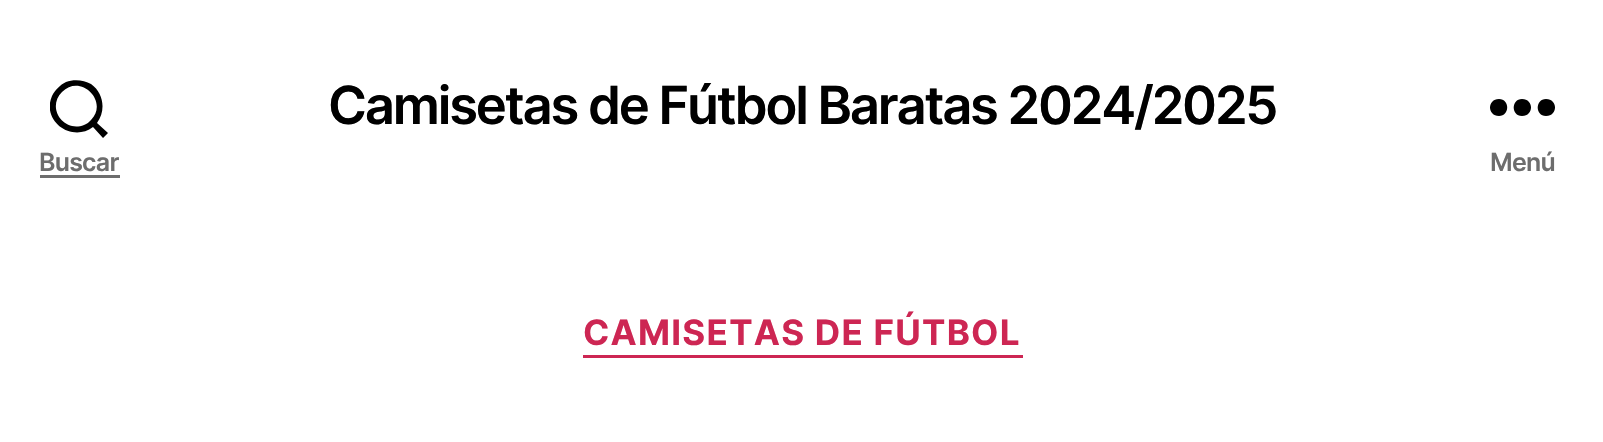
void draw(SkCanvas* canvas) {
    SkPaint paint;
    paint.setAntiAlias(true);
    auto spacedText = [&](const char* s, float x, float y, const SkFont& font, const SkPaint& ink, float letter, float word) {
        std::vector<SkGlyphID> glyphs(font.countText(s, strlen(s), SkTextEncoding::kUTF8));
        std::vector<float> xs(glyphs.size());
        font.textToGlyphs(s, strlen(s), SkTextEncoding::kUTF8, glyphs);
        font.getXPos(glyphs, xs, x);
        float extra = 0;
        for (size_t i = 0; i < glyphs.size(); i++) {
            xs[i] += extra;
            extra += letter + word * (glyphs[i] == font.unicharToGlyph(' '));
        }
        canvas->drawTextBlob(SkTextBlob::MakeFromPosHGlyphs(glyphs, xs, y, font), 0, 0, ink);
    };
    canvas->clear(0xFFFFFFFF);
    SkFont font1(fontMgr->matchFamilyStyle("Inter", SkFontStyle(600, SkFontStyle::kNormal_Width, SkFontStyle::kUpright_Slant)), 52.5f);
    font1.setSubpixel(true);
    paint.setColor(0xFF000000);
    spacedText("Camisetas de Fútbol Baratas 2024/2025", 328, 124, font1, paint, -2.2f, 0);
    canvas->save();
    canvas->clipRect(SkRect::MakeXYWH(50, 78, 58, 62));
    canvas->drawPath(SkPathBuilder().moveTo(97, 123).lineTo(108, 133).lineTo(103, 138).lineTo(93, 127).cubicTo(72, 143, 41, 121, 52, 96).cubicTo(55, 90, 60, 85, 66, 82).cubicTo(74, 79, 84, 80, 91, 84).cubicTo(104, 93, 106, 111, 97, 123).close().moveTo(91, 120).cubicTo(109, 102, 81, 73, 62, 92).cubicTo(46, 108, 64, 133, 84, 125).cubicTo(87, 124, 89, 122, 91, 120).close().detach(), paint);
    canvas->restore();
    SkFont font2(fontMgr->matchFamilyStyle("Inter", SkFontStyle(600, SkFontStyle::kNormal_Width, SkFontStyle::kUpright_Slant)), 25);
    font2.setSubpixel(true);
    paint.setColor(0xFF6D6D6D);
    spacedText("Buscar", 39, 171, font2, paint, -0.75f, 0);
    canvas->drawRect(SkRect::MakeXYWH(40, 175, 80, 3), paint);
    paint.setColor(0xFF000000);
    canvas->drawPath(SkPathBuilder(SkPathFillType::kEvenOdd).moveTo(1499, 116).cubicTo(1487, 116, 1487, 99, 1499, 99).cubicTo(1510, 99, 1510, 116, 1499, 116).close().moveTo(1522, 116).cubicTo(1511, 116, 1511, 99, 1522, 99).cubicTo(1534, 99, 1534, 116, 1522, 116).close().moveTo(1546, 116).cubicTo(1535, 116, 1535, 99, 1546, 99).cubicTo(1558, 99, 1558, 116, 1546, 116).close().detach(), paint);
    paint.setColor(0xFF6D6D6D);
    spacedText("Menú", 1490, 171, font2, paint, -0.75f, 0);
    paint.setColor(0xFFCD2653);
    canvas->drawRect(SkRect::MakeXYWH(583, 355, 440, 3), paint);
    SkFont font3(fontMgr->matchFamilyStyle("Inter", SkFontStyle::Bold()), 35);
    font3.setSubpixel(true);
    spacedText("CAMISETAS DE FÚTBOL", 583, 345, font3, paint, 1.25f, 0);
}
